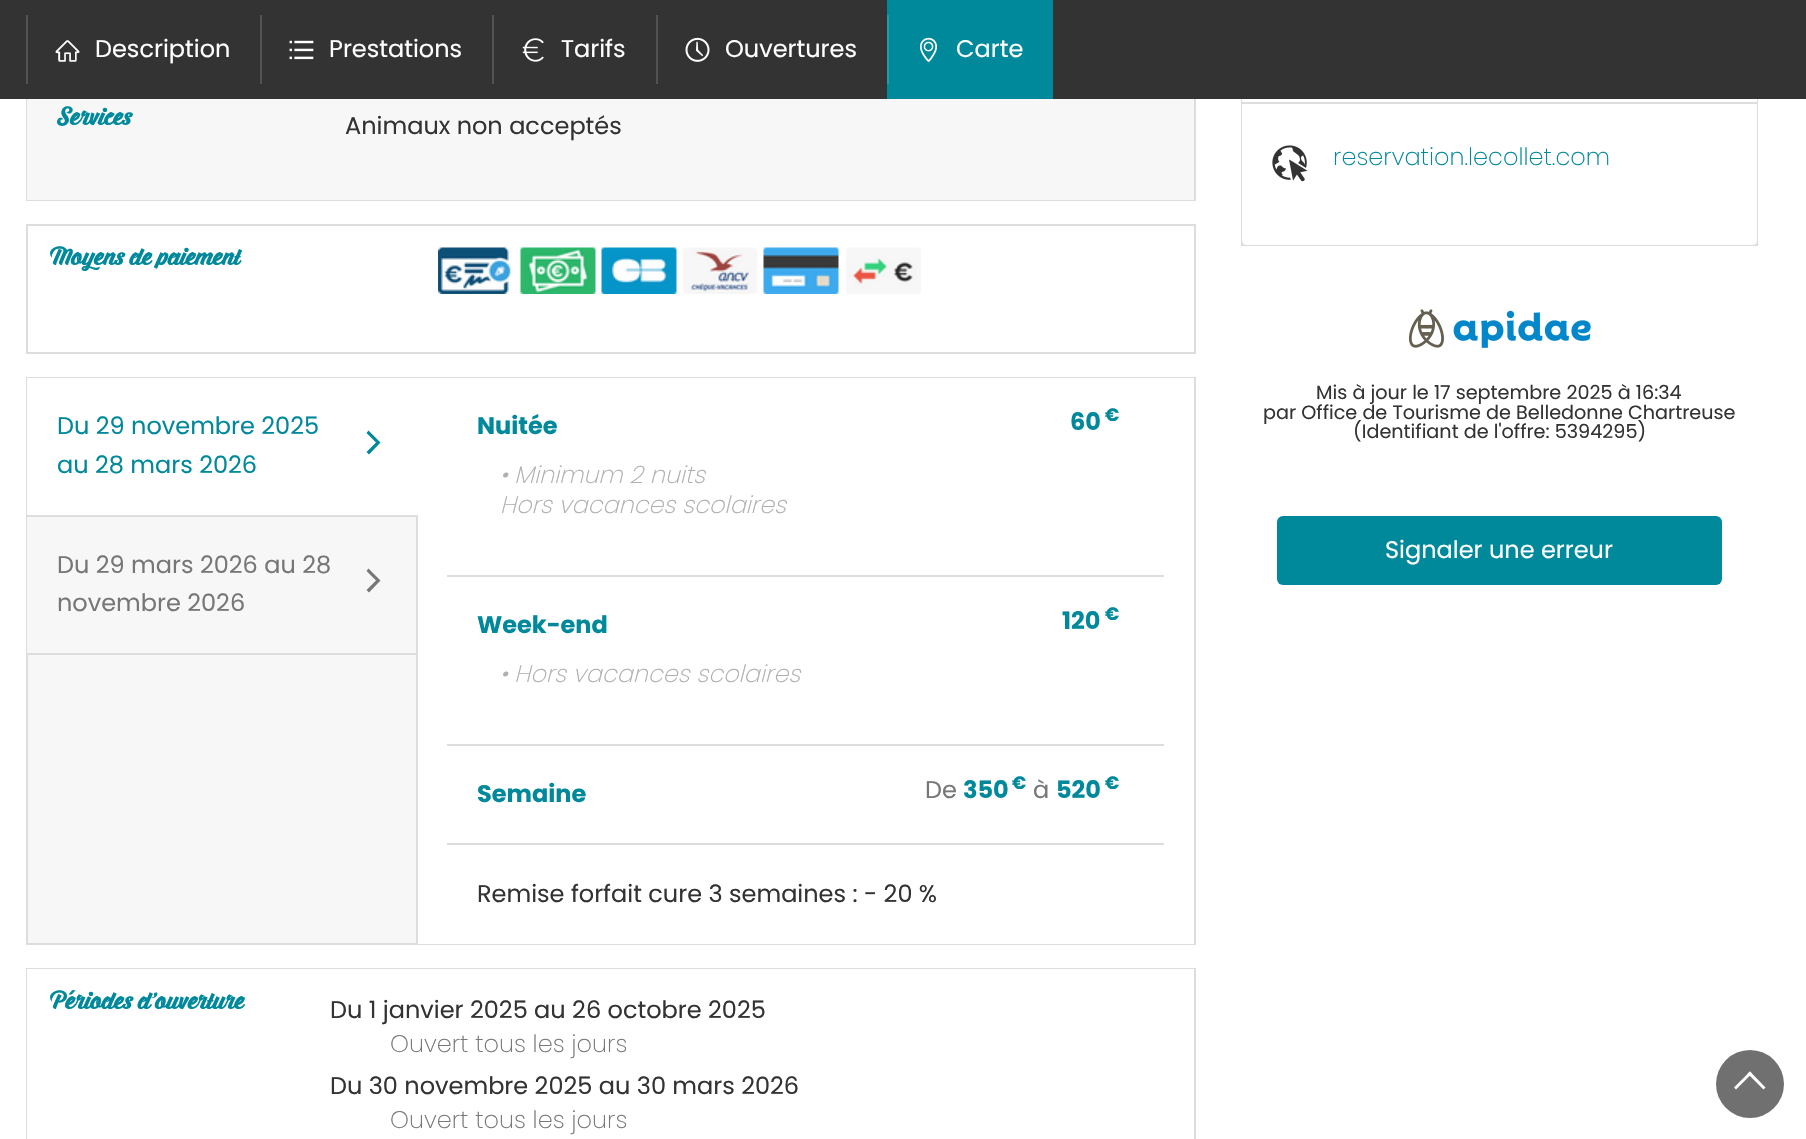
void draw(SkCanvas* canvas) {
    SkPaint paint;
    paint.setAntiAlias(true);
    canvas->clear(0xFFFFFFFF);
    paint.setStyle(SkPaint::kStroke_Style);
    paint.setStrokeWidth(2);
    paint.setColor(0xFFDDDDDD);
    canvas->drawRect(SkRect::MakeXYWH(27, -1, 1168, 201), paint);
    paint.setStyle(SkPaint::kFill_Style);
    paint.setColor(0xFFF7F7F7);
    canvas->drawRect(SkRect::MakeXYWH(27, 195, 1167, 5), paint);
    canvas->drawPath(SkPathBuilder().moveTo(27, 77).lineTo(1194, 77).lineTo(1194, 195).cubicTo(1194, 198, 1192, 200, 1189, 200).lineTo(32, 200).cubicTo(29, 200, 27, 198, 27, 195).close().detach(), paint);
    paint.setStyle(SkPaint::kStroke_Style);
    paint.setColor(0xFFDDDDDD);
    canvas->drawRect(SkRect::MakeXYWH(1242, -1, 515, 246), paint);
    paint.setStyle(SkPaint::kFill_Style);
    paint.setColor(0xFF333333);
    canvas->drawRect(SkRect::MakeXYWH(0, 0, 1806, 99), paint);
    paint.setColor(0xFF525252);
    canvas->drawRect(SkRect::MakeXYWH(26, 15, 2, 69), paint);
    canvas->drawImageRect(SkImages::DeferredFromEncodedData(SkData::MakeFromFileName("img1.png")), SkRect::MakeXYWH(55, 40, 25, 22), SkSamplingOptions());
    SkFont font1(fontMgr->matchFamilyStyle("Poppins", SkFontStyle::Normal()), 24);
    font1.setSubpixel(true);
    paint.setColor(0xFFFFFFFF);
    canvas->drawString("Description", 95, 57, font1, paint);
    paint.setColor(0xFF525252);
    canvas->drawRect(SkRect::MakeXYWH(260, 15, 2, 69), paint);
    canvas->drawImageRect(SkImages::DeferredFromEncodedData(SkData::MakeFromFileName("img2.png")), SkRect::MakeXYWH(289, 40, 25, 20), SkSamplingOptions());
    paint.setColor(0xFFFFFFFF);
    canvas->drawString("Prestations", 329, 57, font1, paint);
    paint.setColor(0xFF525252);
    canvas->drawRect(SkRect::MakeXYWH(492, 15, 2, 69), paint);
    canvas->drawImageRect(SkImages::DeferredFromEncodedData(SkData::MakeFromFileName("img3.png")), SkRect::MakeXYWH(522, 38, 22, 24), SkSamplingOptions());
    paint.setColor(0xFFFFFFFF);
    canvas->drawString("Tarifs", 561, 57, font1, paint);
    paint.setColor(0xFF525252);
    canvas->drawRect(SkRect::MakeXYWH(656, 15, 2, 69), paint);
    canvas->drawImageRect(SkImages::DeferredFromEncodedData(SkData::MakeFromFileName("img4.png")), SkRect::MakeXYWH(685, 37, 25, 25), SkSamplingOptions());
    paint.setColor(0xFFFFFFFF);
    canvas->drawString("Ouvertures", 725, 57, font1, paint);
    paint.setColor(0xFF00889B);
    canvas->drawRect(SkRect::MakeXYWH(887, 0, 166, 99), paint);
    paint.setColor(0xFF269AAA);
    canvas->drawRect(SkRect::MakeXYWH(887, 15, 2, 69), paint);
    canvas->drawImageRect(SkImages::DeferredFromEncodedData(SkData::MakeFromFileName("img5.png")), SkRect::MakeXYWH(919, 37, 18, 25), SkSamplingOptions());
    paint.setColor(0xFFFFFFFF);
    canvas->drawString("Carte", 956, 57, font1, paint);
    SkFont font2(fontMgr->matchFamilyStyle("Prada", SkFontStyle::Bold()), 24);
    font2.setSubpixel(true);
    paint.setColor(0xFF00889B);
    canvas->drawString("Services", 57, 125, font2, paint);
    paint.setColor(0xFF333333);
    canvas->drawString("Animaux non acceptés", 345, 134, font1, paint);
    paint.setStyle(SkPaint::kStroke_Style);
    paint.setColor(0xFFDDDDDD);
    canvas->drawRect(SkRect::MakeXYWH(27, 225, 1168, 128), paint);
    paint.setStyle(SkPaint::kFill_Style);
    paint.setColor(0xFF00889B);
    canvas->drawString("Moyens de paiement", 50, 265, font2, paint);
    canvas->drawImageRect(SkImages::DeferredFromEncodedData(SkData::MakeFromFileName("img6.png")), SkRect::MakeXYWH(438, 247, 74, 47), SkSamplingOptions());
    canvas->drawImageRect(SkImages::DeferredFromEncodedData(SkData::MakeFromFileName("img7.png")), SkRect::MakeXYWH(520, 247, 76, 47), SkSamplingOptions());
    canvas->drawImageRect(SkImages::DeferredFromEncodedData(SkData::MakeFromFileName("img8.png")), SkRect::MakeXYWH(601, 247, 76, 47), SkSamplingOptions());
    canvas->drawImageRect(SkImages::DeferredFromEncodedData(SkData::MakeFromFileName("img9.png")), SkRect::MakeXYWH(682, 247, 76, 47), SkSamplingOptions());
    canvas->drawImageRect(SkImages::DeferredFromEncodedData(SkData::MakeFromFileName("img10.png")), SkRect::MakeXYWH(763, 247, 76, 47), SkSamplingOptions());
    canvas->drawImageRect(SkImages::DeferredFromEncodedData(SkData::MakeFromFileName("img11.png")), SkRect::MakeXYWH(846, 247, 75, 47), SkSamplingOptions());
    paint.setColor(0xFFF7F7F7);
    canvas->drawRect(SkRect::MakeXYWH(28, 655, 388, 288), paint);
    paint.setStyle(SkPaint::kStroke_Style);
    paint.setColor(0xFFDDDDDD);
    canvas->drawRect(SkRect::MakeXYWH(27, 378, 1168, 566), paint);
    paint.setStyle(SkPaint::kFill_Style);
    paint.setColor(0xFFF7F7F7);
    canvas->drawRect(SkRect::MakeXYWH(27, 517, 389, 136), paint);
    paint.setColor(0xFFFFFFFF);
    canvas->drawRect(SkRect::MakeXYWH(27, 378, 387, 137), paint);
    paint.setColor(0xFFDDDDDD);
    canvas->drawRect(SkRect::MakeXYWH(27, 515, 389, 2), paint);
    paint.setColor(0xFFFFFFFF);
    canvas->drawRect(SkRect::MakeXYWH(414, 378, 4, 1), paint);
    paint.setColor(0xFF00889B);
    canvas->drawString("Du 29 novembre 2025", 57, 434, font1, paint);
    canvas->drawString("au 28 mars 2026", 57, 473, font1, paint);
    canvas->drawPath(SkPathBuilder().moveTo(366.5f, 433).lineTo(368.5f, 430.5f).lineTo(380.5f, 442.5f).lineTo(369, 454.5f).lineTo(366.5f, 452).lineTo(376, 442.5f).close().detach(), paint);
    paint.setColor(0xFFDDDDDD);
    canvas->drawRect(SkRect::MakeXYWH(27, 653, 389, 2), paint);
    paint.setColor(0xFF777777);
    canvas->drawString("Du 29 mars 2026 au 28", 57, 573, font1, paint);
    canvas->drawString("novembre 2026", 57, 611, font1, paint);
    canvas->drawPath(SkPathBuilder().moveTo(366.5f, 571).lineTo(368.5f, 568.5f).lineTo(380.5f, 580.5f).lineTo(369, 592.5f).lineTo(366.5f, 590).lineTo(376, 580.5f).close().detach(), paint);
    paint.setColor(0xFFFFFFFF);
    canvas->drawRect(SkRect::MakeXYWH(418, 378, 776, 566), paint);
    paint.setColor(0xFFDDDDDD);
    canvas->drawRect(SkRect::MakeXYWH(416, 515, 2, 429), paint);
    canvas->drawRect(SkRect::MakeXYWH(447, 575, 717, 2), paint);
    SkFont font3(fontMgr->matchFamilyStyle("Poppins", SkFontStyle::Bold()), 24);
    font3.setSubpixel(true);
    paint.setColor(0xFF00889B);
    canvas->drawString("Nuitée", 477, 434, font3, paint);
    canvas->drawString("60", 1070, 430, font3, paint);
    SkFont font4(fontMgr->matchFamilyStyle("Poppins", SkFontStyle::Bold()), 18);
    font4.setSubpixel(true);
    canvas->drawString("€", 1105, 421, font4, paint);
    SkFont font5(fontMgr->matchFamilyStyle("Poppins", SkFontStyle(200, SkFontStyle::kNormal_Width, SkFontStyle::kItalic_Slant)), 24);
    font5.setSubpixel(true);
    paint.setColor(0xFFAFAFAF);
    canvas->drawString("• Minimum 2 nuits", 500, 483, font5, paint);
    canvas->drawString("Hors vacances scolaires", 500, 513, font5, paint);
    paint.setColor(0xFFDDDDDD);
    canvas->drawRect(SkRect::MakeXYWH(447, 744, 717, 2), paint);
    paint.setColor(0xFF00889B);
    canvas->drawString("Week-end", 477, 633, font3, paint);
    canvas->drawString("120", 1062, 629, font3, paint);
    canvas->drawString("€", 1105, 620, font4, paint);
    paint.setColor(0xFFAFAFAF);
    canvas->drawString("• Hors vacances scolaires", 500, 682, font5, paint);
    paint.setColor(0xFFDDDDDD);
    canvas->drawRect(SkRect::MakeXYWH(447, 843, 717, 2), paint);
    paint.setColor(0xFF00889B);
    canvas->drawString("Semaine", 477, 802, font3, paint);
    paint.setColor(0xFF777777);
    canvas->drawString("De", 925, 798, font1, paint);
    paint.setColor(0xFF00889B);
    canvas->drawString("350", 963, 798, font3, paint);
    canvas->drawString("€", 1012, 789, font4, paint);
    paint.setColor(0xFF777777);
    canvas->drawString("à", 1033, 798, font1, paint);
    paint.setColor(0xFF00889B);
    canvas->drawString("520", 1056, 798, font3, paint);
    canvas->drawString("€", 1105, 789, font4, paint);
    paint.setColor(0xFF333333);
    canvas->drawString("Remise forfait cure 3 semaines : - 20 %", 477, 902, font1, paint);
    paint.setStyle(SkPaint::kStroke_Style);
    paint.setColor(0xFFDDDDDD);
    canvas->drawRect(SkRect::MakeXYWH(27, 969, 1168, 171), paint);
    paint.setStyle(SkPaint::kFill_Style);
    paint.setColor(0xFFFFFFFF);
    canvas->drawRect(SkRect::MakeXYWH(27, 969, 1167, 170), paint);
    paint.setColor(0xFF00889B);
    canvas->drawString("Périodes d'ouverture", 50, 1009, font2, paint);
    paint.setColor(0xFF333333);
    canvas->drawString("Du 1 janvier 2025 au 26 octobre 2025", 330, 1018, font1, paint);
    SkFont font6(fontMgr->matchFamilyStyle("Poppins", SkFontStyle(200, SkFontStyle::kNormal_Width, SkFontStyle::kUpright_Slant)), 24);
    font6.setSubpixel(true);
    paint.setColor(0xFF777777);
    canvas->drawString("Ouvert tous les jours", 390, 1052, font6, paint);
    paint.setColor(0xFF333333);
    canvas->drawString("Du 30 novembre 2025 au 30 mars 2026", 330, 1094, font1, paint);
    paint.setColor(0xFF777777);
    canvas->drawString("Ouvert tous les jours", 390, 1128, font6, paint);
    paint.setColor(0xFFFFFFFF);
    canvas->drawRect(SkRect::MakeXYWH(1242, 99, 515, 3), paint);
    canvas->drawPath(SkPathBuilder().moveTo(1242, 102).lineTo(1757, 102).lineTo(1757, 240).cubicTo(1757, 243, 1755, 245, 1752, 245).lineTo(1247, 245).cubicTo(1244, 245, 1242, 243, 1242, 240).close().detach(), paint);
    paint.setColor(0xFFDDDDDD);
    canvas->drawRect(SkRect::MakeXYWH(1242, 102, 515, 2), paint);
    canvas->drawImageRect(SkImages::DeferredFromEncodedData(SkData::MakeFromFileName("img12.png")), SkRect::MakeXYWH(1272, 145, 36, 37), SkSamplingOptions());
    paint.setColor(0xFF00889B);
    canvas->drawString("reservation.lecollet.com", 1333, 165, font6, paint);
    canvas->drawImageRect(SkImages::DeferredFromEncodedData(SkData::MakeFromFileName("img13.png")), SkRect::MakeXYWH(1409, 309, 182, 39), SkSamplingOptions());
    SkFont font7(fontMgr->matchFamilyStyle("Poppins", SkFontStyle::Normal()), 19.2f);
    font7.setSubpixel(true);
    paint.setColor(0xFF333333);
    canvas->drawString("Mis à jour le 17 septembre 2025 à 16:34", 1316, 399, font7, paint);
    canvas->drawString("par Office de Tourisme de Belledonne Chartreuse", 1263, 419, font7, paint);
    canvas->drawString("(Identifiant de l'offre: 5394295)", 1353, 438, font7, paint);
    paint.setColor(0xFF00889B);
    canvas->drawRoundRect(SkRect::MakeXYWH(1277, 516, 445, 69), 6, 6, paint);
    paint.setColor(0xFFFFFFFF);
    canvas->drawString("Signaler une erreur", 1385, 558, font1, paint);
    paint.setColor(0xFF707070);
    canvas->drawCircle(1750, 1084, 34, paint);
    paint.setColor(0xFFFFFFFF);
    canvas->drawPath(SkPathBuilder().moveTo(1750, 1071.5f).lineTo(1765.5f, 1087.5f).lineTo(1763.5f, 1089.5f).lineTo(1747.5f, 1073.5f).close().detach(), paint);
    canvas->drawPath(SkPathBuilder().moveTo(1750, 1071.5f).lineTo(1752, 1073.5f).lineTo(1736, 1089.5f).lineTo(1734, 1087.5f).close().detach(), paint);
}
